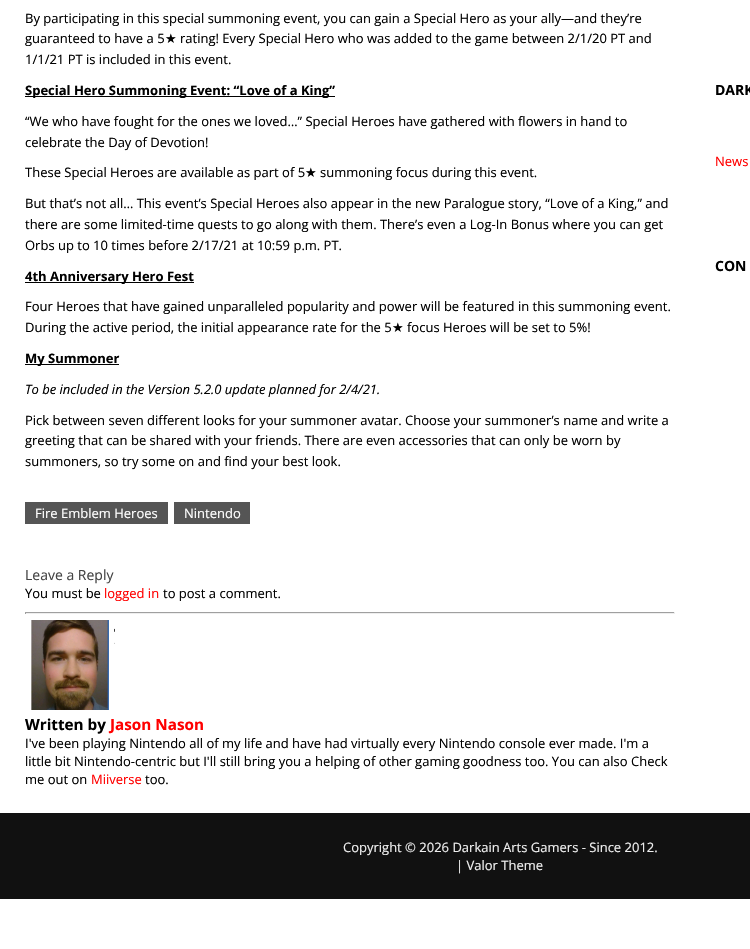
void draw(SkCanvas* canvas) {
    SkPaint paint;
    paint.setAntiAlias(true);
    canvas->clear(0xFFFFFFFF);
    SkFont font1(fontMgr->matchFamilyStyle("Open Sans", SkFontStyle::Normal()), 13);
    font1.setSubpixel(true);
    paint.setColor(0xFF000000);
    canvas->drawString("By participating in this special summoning event, you can gain a Special Hero as your ally—and they’re", 25, 23, font1, paint);
    canvas->drawString("guaranteed to have a 5", 25, 43, font1, paint);
    SkFont font2(fontMgr->matchFamilyStyle("DejaVu Sans", SkFontStyle::Normal()), 13);
    font2.setSubpixel(true);
    canvas->drawString("★", 165, 43, font2, paint);
    canvas->drawString("rating! Every Special Hero who was added to the game between 2/1/20 PT and", 180, 43, font1, paint);
    canvas->drawString("1/1/21 PT is included in this event.", 25, 64, font1, paint);
    canvas->drawRect(SkRect::MakeXYWH(25, 96, 310, 1), paint);
    SkFont font3(fontMgr->matchFamilyStyle("Open Sans", SkFontStyle::Bold()), 13);
    font3.setSubpixel(true);
    canvas->drawString("Special Hero Summoning Event: “Love of a King”", 25, 95, font3, paint);
    canvas->drawString("“We who have fought for the ones we loved…” Special Heroes have gathered with flowers in hand to", 25, 126, font1, paint);
    canvas->drawString("celebrate the Day of Devotion!", 25, 147, font1, paint);
    canvas->drawString("These Special Heroes are available as part of 5", 25, 177, font1, paint);
    canvas->drawString("★", 305, 177, font2, paint);
    canvas->drawString("summoning focus during this event.", 320, 177, font1, paint);
    canvas->drawString("But that’s not all… This event’s Special Heroes also appear in the new Paralogue story, “Love of a King,” and", 25, 208, font1, paint);
    canvas->drawString("there are some limited-time quests to go along with them. There’s even a Log-In Bonus where you can get", 25, 229, font1, paint);
    canvas->drawString("Orbs up to 10 times before 2/17/21 at 10:59 p.m. PT.", 25, 250, font1, paint);
    canvas->drawRect(SkRect::MakeXYWH(25, 282, 169, 1), paint);
    canvas->drawString("4th Anniversary Hero Fest", 25, 281, font3, paint);
    canvas->drawString("Four Heroes that have gained unparalleled popularity and power will be featured in this summoning event.", 25, 311, font1, paint);
    canvas->drawString("During the active period, the initial appearance rate for the 5", 25, 332, font1, paint);
    canvas->drawString("★", 392, 332, font2, paint);
    canvas->drawString("focus Heroes will be set to 5%!", 407, 332, font1, paint);
    canvas->drawRect(SkRect::MakeXYWH(25, 364, 94, 1), paint);
    canvas->drawString("My Summoner", 25, 363, font3, paint);
    SkFont font4(fontMgr->matchFamilyStyle("Open Sans", SkFontStyle::Italic()), 13);
    font4.setSubpixel(true);
    canvas->drawString("To be included in the Version 5.2.0 update planned for 2/4/21.", 25, 394, font4, paint);
    canvas->drawString("Pick between seven different looks for your summoner avatar. Choose your summoner’s name and write a", 25, 425, font1, paint);
    canvas->drawString("greeting that can be shared with your friends. There are even accessories that can only be worn by", 25, 445, font1, paint);
    canvas->drawString("summoners, so try some on and find your best look.", 25, 466, font1, paint);
    paint.setColor(0xFF555555);
    canvas->drawRect(SkRect::MakeXYWH(25, 502, 143, 22), paint);
    paint.setColor(0xFFFFFFFF);
    canvas->drawString("Fire Emblem Heroes", 35, 518, font1, paint);
    paint.setColor(0xFF555555);
    canvas->drawRect(SkRect::MakeXYWH(174, 502, 76, 22), paint);
    paint.setColor(0xFFFFFFFF);
    canvas->drawString("Nintendo", 184, 518, font1, paint);
    SkFont font5(fontMgr->matchFamilyStyle("Open Sans", SkFontStyle::Normal()), 14);
    font5.setSubpixel(true);
    paint.setColor(0xFF444444);
    canvas->drawString("Leave a Reply", 25, 580, font5, paint);
    paint.setColor(0xFF000000);
    canvas->drawString("You must be", 25, 598, font1, paint);
    paint.setColor(0xFFFF0000);
    canvas->drawString("logged in", 104, 598, font1, paint);
    paint.setColor(0xFF000000);
    canvas->drawString("to post a comment.", 163, 598, font1, paint);
    paint.setColor(0xFF9F9F9F);
    canvas->drawRect(SkRect::MakeXYWH(25, 612, 650, 1), paint);
    paint.setColor(0xFFEEEEEE);
    canvas->drawRect(SkRect::MakeXYWH(674, 612, 1, 2), paint);
    canvas->drawRect(SkRect::MakeXYWH(25, 613, 650, 1), paint);
    paint.setColor(0xFF9F9F9F);
    canvas->drawRect(SkRect::MakeXYWH(25, 612, 1, 2), paint);
    canvas->drawImageRect(SkImages::DeferredFromEncodedData(SkData::MakeFromFileName("img1.png")), SkRect::MakeXYWH(31, 620, 84, 90), SkSamplingOptions());
    SkFont font6(fontMgr->matchFamilyStyle("Open Sans", SkFontStyle::Bold()), 15.25f);
    font6.setSubpixel(true);
    paint.setColor(0xFF000000);
    canvas->drawString("Written by", 25, 730, font6, paint);
    paint.setColor(0xFFFF0000);
    canvas->drawString("Jason Nason", 110, 730, font6, paint);
    paint.setColor(0xFF000000);
    canvas->drawString("I've been playing Nintendo all of my life and have had virtually every Nintendo console ever made. I'm a", 25, 748, font1, paint);
    canvas->drawString("little bit Nintendo-centric but I'll still bring you a helping of other gaming goodness too. You can also Check", 25, 766, font1, paint);
    canvas->drawString("me out on", 25, 784, font1, paint);
    paint.setColor(0xFFFF0000);
    canvas->drawString("Miiverse", 91, 784, font1, paint);
    paint.setColor(0xFF000000);
    canvas->drawString("too.", 145, 784, font1, paint);
    SkFont font7(fontMgr->matchFamilyStyle("Open Sans", SkFontStyle::Bold()), 14);
    font7.setSubpixel(true);
    canvas->drawString("DARK", 715, 95, font7, paint);
    paint.setColor(0xFFFF0000);
    canvas->drawString("News", 715, 166, font1, paint);
    paint.setColor(0xFF000000);
    canvas->drawString("CON", 715, 271, font7, paint);
    paint.setColor(0xFF111111);
    canvas->drawRect(SkRect::MakeXYWH(0, 813, 750, 86), paint);
    paint.setColor(0xFFEEEEEE);
    canvas->drawString("Copyright © 2026 Darkain Arts Gamers - Since 2012.", 343, 852, font1, paint);
    canvas->drawString("| Valor Theme", 456, 870, font1, paint);
}
